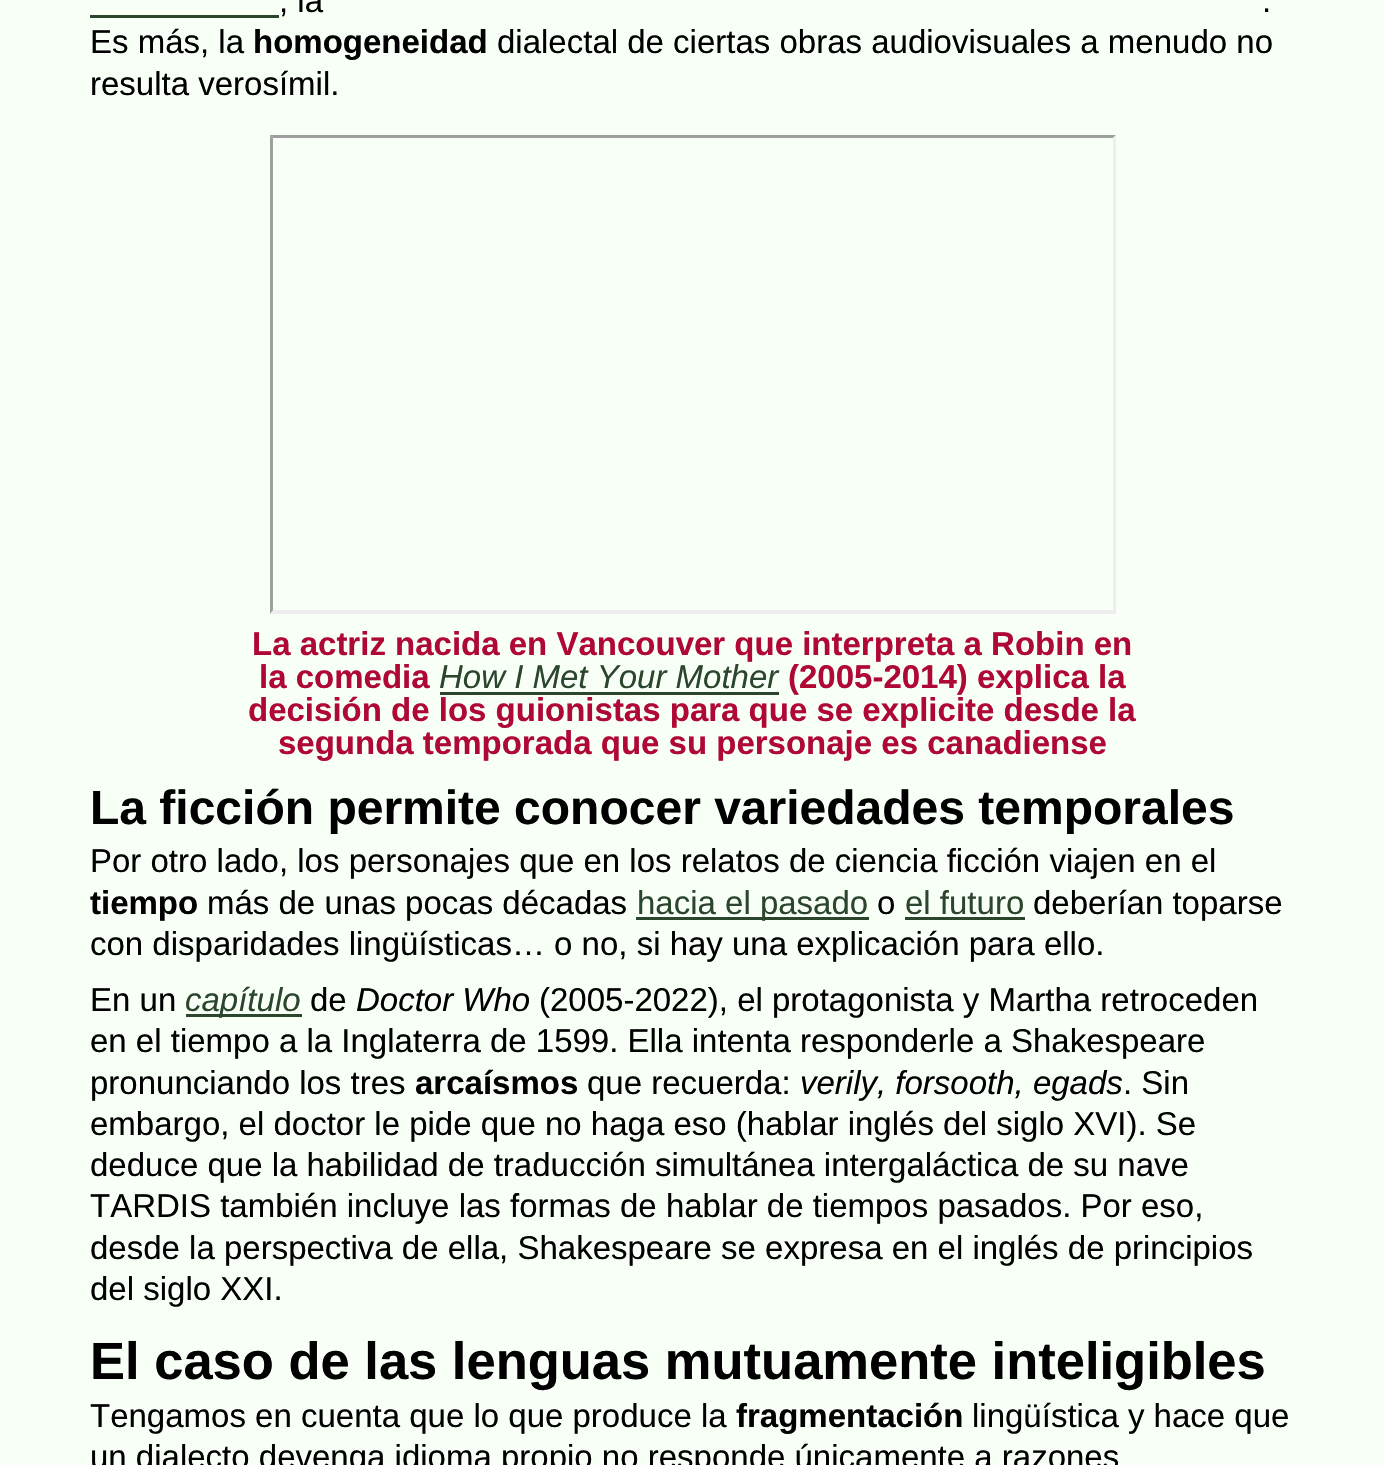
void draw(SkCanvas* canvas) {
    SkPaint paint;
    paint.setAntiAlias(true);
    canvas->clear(0xFFF7FFF7);
    SkFont font1(fontMgr->matchFamilyStyle("Liberation Sans", SkFontStyle::Normal()), 33);
    font1.setSubpixel(true);
    paint.setColor(0xFF000000);
    canvas->drawString(", la", 279, 12, font1, paint);
    canvas->drawString(".", 1262, 12, font1, paint);
    paint.setColor(0xFF2C462D);
    canvas->drawRect(SkRect::MakeXYWH(90, 15, 189, 3), paint);
    paint.setColor(0xFF000000);
    canvas->drawString("Es más, la", 90, 53, font1, paint);
    SkFont font2(fontMgr->matchFamilyStyle("Liberation Sans", SkFontStyle::Bold()), 33);
    font2.setSubpixel(true);
    canvas->drawString("homogeneidad", 253, 53, font2, paint);
    canvas->drawString("dialectal de ciertas obras audiovisuales a menudo no", 497, 53, font1, paint);
    canvas->drawString("resulta verosímil.", 90, 95, font1, paint);
    paint.setColor(0xFF9F9F9F);
    canvas->drawPath(SkPathBuilder().moveTo(270, 135).lineTo(1116, 135).lineTo(1113, 138).lineTo(273, 138).close().detach(), paint);
    paint.setColor(0xFFEEEEEE);
    canvas->drawPath(SkPathBuilder().moveTo(1116, 135).lineTo(1116, 614).lineTo(1113, 610).lineTo(1113, 138).close().detach(), paint);
    canvas->drawPath(SkPathBuilder().moveTo(1116, 614).lineTo(270, 614).lineTo(273, 610).lineTo(1113, 610).close().detach(), paint);
    paint.setColor(0xFF9F9F9F);
    canvas->drawPath(SkPathBuilder().moveTo(270, 614).lineTo(270, 135).lineTo(273, 138).lineTo(273, 610).close().detach(), paint);
    paint.setColor(0xFFAF0835);
    canvas->drawString("La actriz nacida en Vancouver que interpreta a Robin en", 252, 655, font2, paint);
    canvas->drawString("la comedia", 259, 688, font2, paint);
    SkFont font3(fontMgr->matchFamilyStyle("Liberation Sans", SkFontStyle::Italic()), 33);
    font3.setSubpixel(true);
    paint.setColor(0xFF2C462D);
    canvas->drawString("How I Met Your Mother", 439, 688, font3, paint);
    canvas->drawRect(SkRect::MakeXYWH(440, 692, 339, 3), paint);
    paint.setColor(0xFFAF0835);
    canvas->drawString("(2005-2014) explica la", 788, 688, font2, paint);
    canvas->drawString("decisión de los guionistas para que se explicite desde la", 248, 721, font2, paint);
    canvas->drawString("segunda temporada que su personaje es canadiense", 278, 754, font2, paint);
    SkFont font4(fontMgr->matchFamilyStyle("Liberation Sans", SkFontStyle::Bold()), 48);
    font4.setSubpixel(true);
    paint.setColor(0xFF000000);
    canvas->drawString("La ficción permite conocer variedades temporales", 90, 824, font4, paint);
    canvas->drawString("Por otro lado, los personajes que en los relatos de ciencia ficción viajen en el", 90, 872, font1, paint);
    canvas->drawString("tiempo", 90, 914, font2, paint);
    canvas->drawString("más de unas pocas décadas", 207, 914, font1, paint);
    paint.setColor(0xFF2C462D);
    canvas->drawRect(SkRect::MakeXYWH(636, 917, 233, 3), paint);
    canvas->drawString("hacia el pasado", 637, 914, font1, paint);
    paint.setColor(0xFF000000);
    canvas->drawString("o", 877, 914, font1, paint);
    paint.setColor(0xFF2C462D);
    canvas->drawString("el futuro", 905, 914, font1, paint);
    canvas->drawRect(SkRect::MakeXYWH(905, 917, 120, 3), paint);
    paint.setColor(0xFF000000);
    canvas->drawString("deberían toparse", 1033, 914, font1, paint);
    canvas->drawString("con disparidades lingüísticas… o no, si hay una explicación para ello.", 90, 955, font1, paint);
    canvas->drawString("En un", 90, 1011, font1, paint);
    paint.setColor(0xFF2C462D);
    canvas->drawRect(SkRect::MakeXYWH(186, 1014, 116, 3), paint);
    canvas->drawString("capítulo", 185, 1011, font3, paint);
    paint.setColor(0xFF000000);
    canvas->drawString("de", 310, 1011, font1, paint);
    canvas->drawString("Doctor Who", 356, 1011, font3, paint);
    canvas->drawString("(2005-2022), el protagonista y Martha retroceden", 539, 1011, font1, paint);
    canvas->drawString("en el tiempo a la Inglaterra de 1599. Ella intenta responderle a Shakespeare", 90, 1052, font1, paint);
    canvas->drawString("pronunciando los tres", 90, 1094, font1, paint);
    canvas->drawString("arcaísmos", 415, 1094, font2, paint);
    canvas->drawString("que recuerda:", 587, 1094, font1, paint);
    canvas->drawString("verily, forsooth, egads", 800, 1094, font3, paint);
    canvas->drawString(". Sin", 1123, 1094, font1, paint);
    canvas->drawString("embargo, el doctor le pide que no haga eso (hablar inglés del siglo XVI). Se", 90, 1135, font1, paint);
    canvas->drawString("deduce que la habilidad de traducción simultánea intergaláctica de su nave", 90, 1176, font1, paint);
    canvas->drawString("TARDIS también incluye las formas de hablar de tiempos pasados. Por eso,", 90, 1217, font1, paint);
    canvas->drawString("desde la perspectiva de ella, Shakespeare se expresa en el inglés de principios", 90, 1259, font1, paint);
    canvas->drawString("del siglo XXI.", 90, 1300, font1, paint);
    SkFont font5(fontMgr->matchFamilyStyle("Liberation Sans", SkFontStyle::Bold()), 52.5f);
    font5.setSubpixel(true);
    canvas->drawString("El caso de las lenguas mutuamente inteligibles", 90, 1379, font5, paint);
    canvas->drawString("Tengamos en cuenta que lo que produce la", 90, 1427, font1, paint);
    canvas->drawString("fragmentación", 736, 1427, font2, paint);
    canvas->drawString("lingüística y hace que", 972, 1427, font1, paint);
    canvas->drawString("un dialecto devenga idioma propio no responde únicamente a razones", 90, 1468, font1, paint);
}
